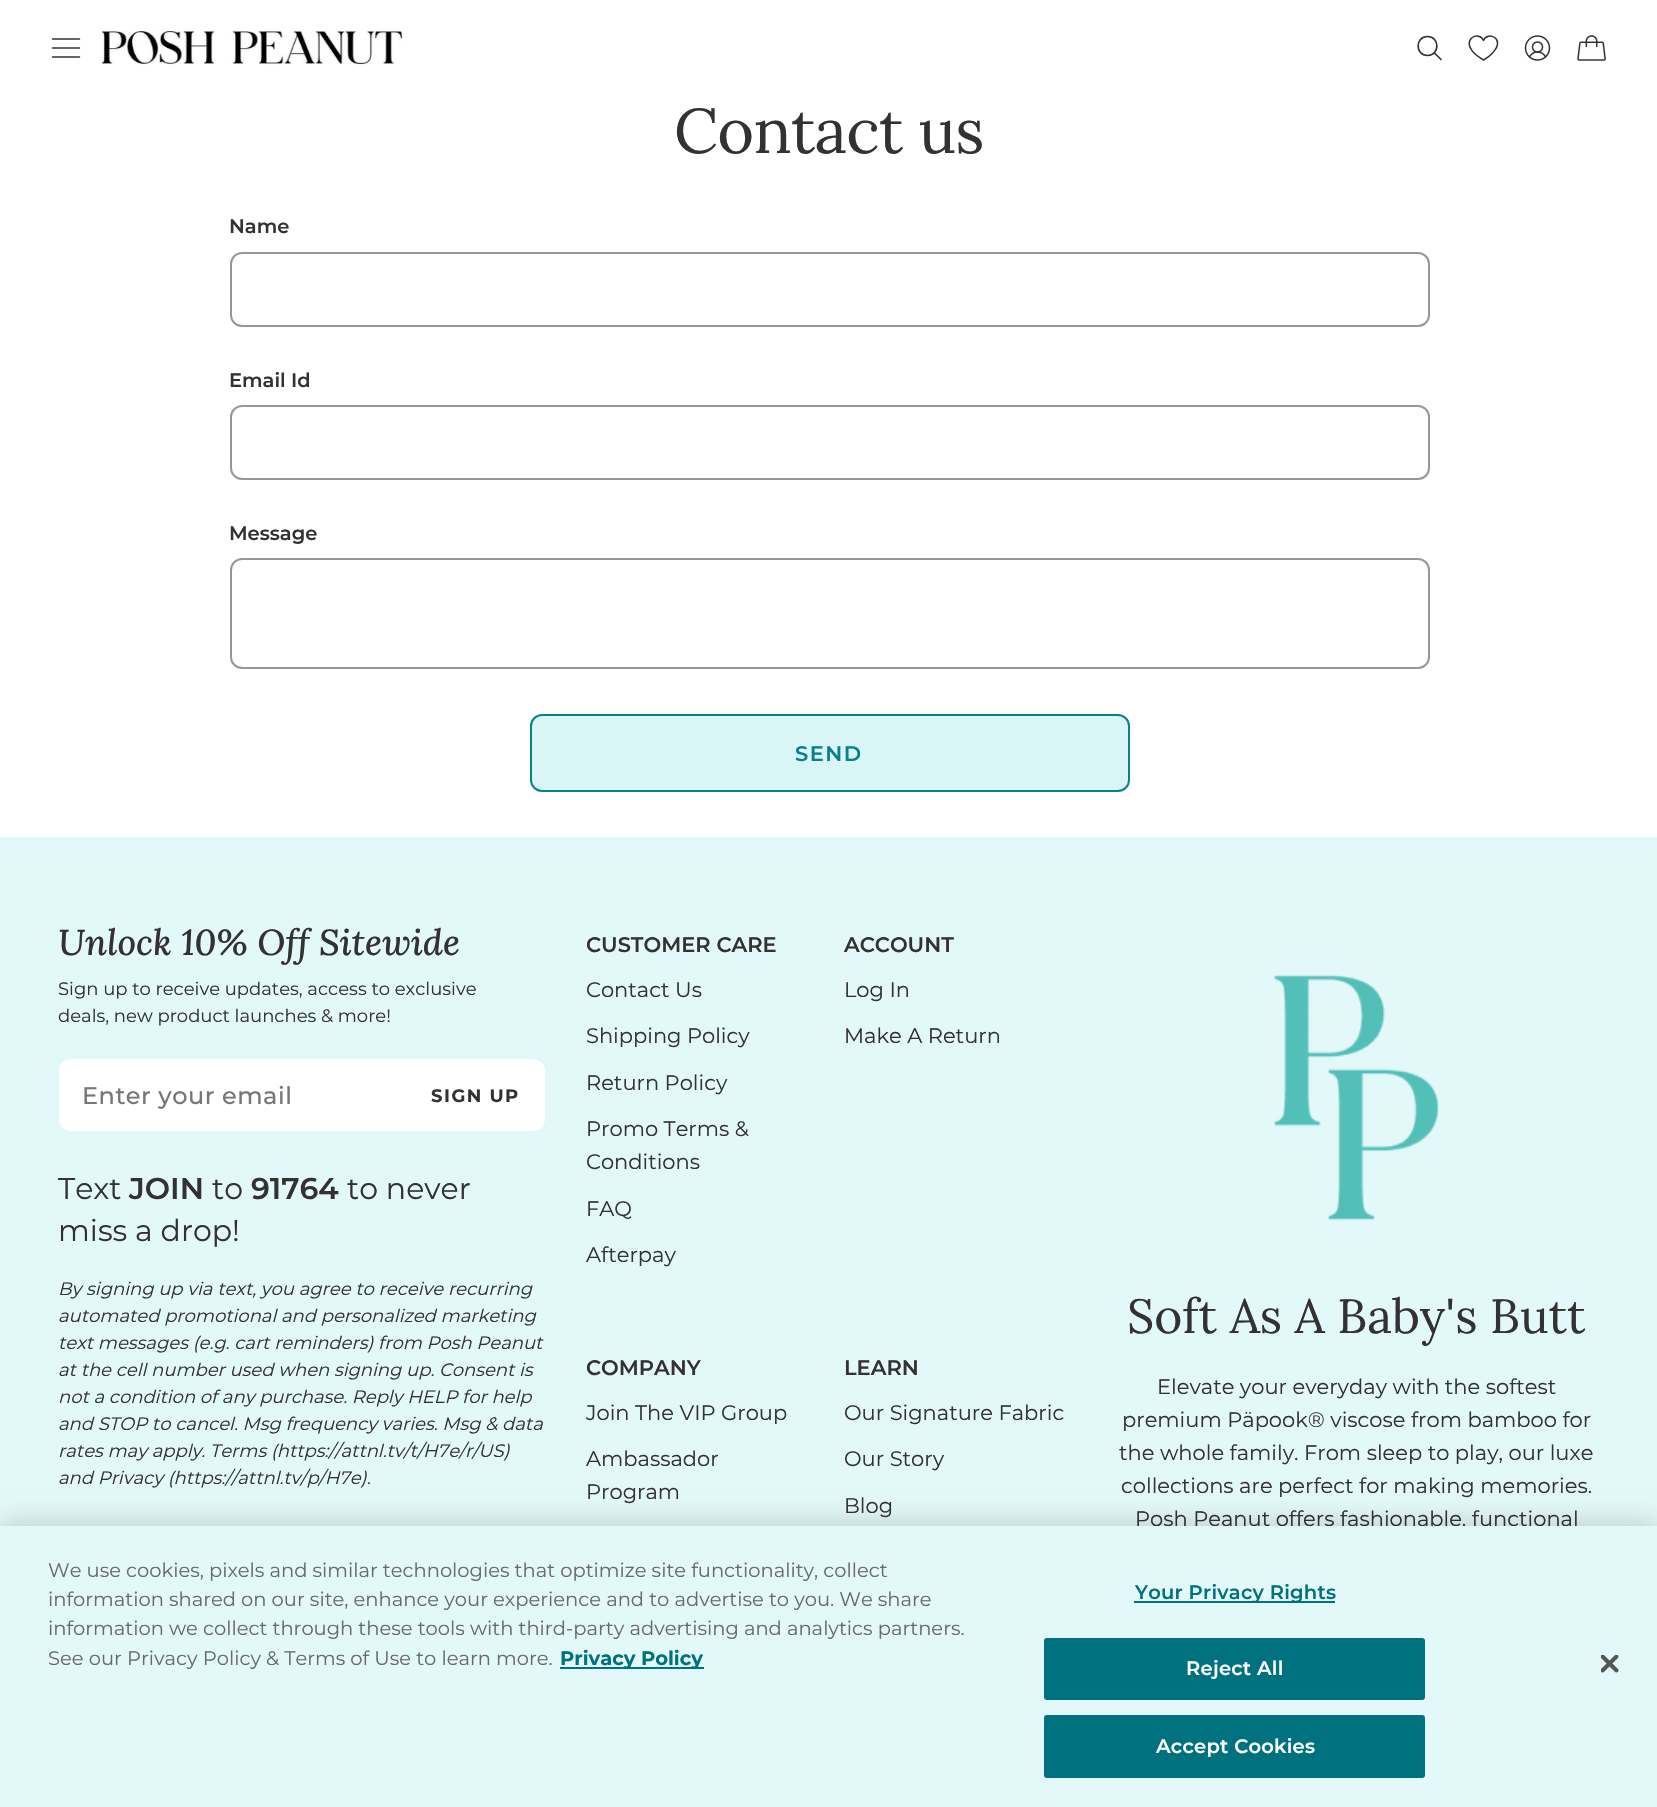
void draw(SkCanvas* canvas) {
    SkPaint paint;
    paint.setAntiAlias(true);
    auto spacedText = [&](const char* s, float x, float y, const SkFont& font, const SkPaint& ink, float letter, float word) {
        std::vector<SkGlyphID> glyphs(font.countText(s, strlen(s), SkTextEncoding::kUTF8));
        std::vector<float> xs(glyphs.size());
        font.textToGlyphs(s, strlen(s), SkTextEncoding::kUTF8, glyphs);
        font.getXPos(glyphs, xs, x);
        float extra = 0;
        for (size_t i = 0; i < glyphs.size(); i++) {
            xs[i] += extra;
            extra += letter + word * (glyphs[i] == font.unicharToGlyph(' '));
        }
        canvas->drawTextBlob(SkTextBlob::MakeFromPosHGlyphs(glyphs, xs, y, font), 0, 0, ink);
    };
    canvas->clear(0xFFFFFFFF);
    paint.setStyle(SkPaint::kStroke_Style);
    paint.setStrokeWidth(1.5f);
    paint.setStrokeCap(SkPaint::kRound_Cap);
    paint.setStrokeJoin(SkPaint::kRound_Join);
    paint.setColor(0xFF343132);
    canvas->drawPath(SkPathBuilder().moveTo(52.5f, 48).lineTo(79.5f, 48).moveTo(52.5f, 39).lineTo(79.5f, 39).moveTo(52.5f, 57).lineTo(79.5f, 57).detach(), paint);
    canvas->drawImageRect(SkImages::DeferredFromEncodedData(SkData::MakeFromFileName("img1.png")), SkRect::MakeXYWH(102, 31, 300, 34), SkSamplingOptions());
    paint.setStrokeWidth(1.7f);
    canvas->drawPath(SkPathBuilder().moveTo(1427.5f, 55.5f).cubicTo(1440, 55.5f, 1440, 36.5f, 1427.5f, 36.5f).cubicTo(1415, 36.5f, 1415, 55.5f, 1427.5f, 55.5f).close().moveTo(1434.5f, 53).lineTo(1441, 59.5f).detach(), paint);
    paint.setStrokeWidth(1.5f);
    canvas->drawPath(SkPathBuilder().moveTo(1483.5f, 60).cubicTo(1480, 58, 1476.5f, 55.5f, 1473.5f, 52.5f).cubicTo(1461, 38.5f, 1479.5f, 30.5f, 1483.5f, 40.5f).cubicTo(1487.5f, 30.5f, 1506, 38.5f, 1493, 52.5f).cubicTo(1490.5f, 55.5f, 1487, 58, 1483.5f, 60).close().detach(), paint);
    canvas->drawImageRect(SkImages::DeferredFromEncodedData(SkData::MakeFromFileName("img2.png")), SkRect::MakeXYWH(1524, 35, 27, 26), SkSamplingOptions());
    canvas->drawImageRect(SkImages::DeferredFromEncodedData(SkData::MakeFromFileName("img3.png")), SkRect::MakeXYWH(1577, 35, 29, 26), SkSamplingOptions());
    SkFont font1(fontMgr->matchFamilyStyle("Lora", SkFontStyle::Normal()), 63);
    font1.setSubpixel(true);
    paint.setStyle(SkPaint::kFill_Style);
    spacedText("Contact us", 674, 153, font1, paint, -0.75f, 0);
    SkFont font2(fontMgr->matchFamilyStyle("Montserrat", SkFontStyle(600, SkFontStyle::kNormal_Width, SkFontStyle::kUpright_Slant)), 19.5f);
    font2.setSubpixel(true);
    canvas->drawString("Name", 229, 233, font2, paint);
    paint.setStyle(SkPaint::kStroke_Style);
    paint.setStrokeWidth(2);
    paint.setStrokeCap(SkPaint::kButt_Cap);
    paint.setStrokeJoin(SkPaint::kMiter_Join);
    paint.setColor(0xFF979797);
    canvas->drawRoundRect(SkRect::MakeXYWH(231, 253, 1198, 73), 11, 11, paint);
    paint.setStyle(SkPaint::kFill_Style);
    paint.setColor(0xFF343132);
    canvas->drawString("Email Id", 229, 387, font2, paint);
    paint.setStyle(SkPaint::kStroke_Style);
    paint.setColor(0xFF979797);
    canvas->drawRoundRect(SkRect::MakeXYWH(231, 406, 1198, 73), 11, 11, paint);
    paint.setStyle(SkPaint::kFill_Style);
    paint.setColor(0xFF343132);
    canvas->drawString("Message", 229, 540, font2, paint);
    paint.setStyle(SkPaint::kStroke_Style);
    paint.setColor(0xFF979797);
    canvas->drawRoundRect(SkRect::MakeXYWH(231, 559, 1198, 109), 11, 11, paint);
    paint.setStyle(SkPaint::kFill_Style);
    paint.setColor(0xFFD9F5F6);
    canvas->drawRoundRect(SkRect::MakeXYWH(531, 715, 598, 76), 11, 11, paint);
    paint.setStyle(SkPaint::kStroke_Style);
    paint.setColor(0xFF07818B);
    canvas->drawRoundRect(SkRect::MakeXYWH(531, 715, 598, 76), 11, 11, paint);
    SkFont font3(fontMgr->matchFamilyStyle("Montserrat", SkFontStyle(600, SkFontStyle::kNormal_Width, SkFontStyle::kUpright_Slant)), 21);
    font3.setSubpixel(true);
    paint.setStyle(SkPaint::kFill_Style);
    spacedText("SEND", 795, 761, font3, paint, 1.5f, 0);
    paint.setColor(0xFFE3F8F9);
    canvas->drawRect(SkRect::MakeXYWH(0, 837, 1657, 689), paint);
    SkFont font4(fontMgr->matchFamilyStyle("Lora", SkFontStyle(500, SkFontStyle::kNormal_Width, SkFontStyle::kItalic_Slant)), 36);
    font4.setSubpixel(true);
    paint.setColor(0xFF343132);
    canvas->drawString("Unlock 10% Off Sitewide", 58, 955, font4, paint);
    SkFont font5(fontMgr->matchFamilyStyle("Montserrat", SkFontStyle(100, SkFontStyle::kNormal_Width, SkFontStyle::kUpright_Slant)), 18);
    font5.setSubpixel(true);
    canvas->drawString("Sign up to receive updates, access to exclusive", 58, 995, font5, paint);
    canvas->drawString("deals, new product launches & more!", 58, 1022, font5, paint);
    paint.setColor(0xFFFFFFFF);
    canvas->drawRoundRect(SkRect::MakeXYWH(59, 1059, 486, 72), 12, 12, paint);
    SkFont font6(fontMgr->matchFamilyStyle("Montserrat", SkFontStyle(500, SkFontStyle::kNormal_Width, SkFontStyle::kUpright_Slant)), 24);
    font6.setSubpixel(true);
    paint.setColor(0xFF777777);
    spacedText("Enter your email", 82, 1104, font6, paint, 0.5f, 0);
    SkFont font7(fontMgr->matchFamilyStyle("Montserrat", SkFontStyle::Bold()), 18);
    font7.setSubpixel(true);
    paint.setColor(0xFF343132);
    spacedText("SIGN UP", 431, 1102, font7, paint, 1.5f, 0);
    SkFont font8(fontMgr->matchFamilyStyle("Montserrat", SkFontStyle(100, SkFontStyle::kNormal_Width, SkFontStyle::kUpright_Slant)), 30);
    font8.setSubpixel(true);
    canvas->drawString("Text", 58, 1199, font8, paint);
    SkFont font9(fontMgr->matchFamilyStyle("Montserrat", SkFontStyle(600, SkFontStyle::kNormal_Width, SkFontStyle::kUpright_Slant)), 30);
    font9.setSubpixel(true);
    canvas->drawString("JOIN", 129, 1199, font9, paint);
    canvas->drawString("to", 212, 1199, font8, paint);
    canvas->drawString("91764", 251, 1199, font9, paint);
    canvas->drawString("to never", 347, 1199, font8, paint);
    canvas->drawString("miss a drop!", 58, 1241, font8, paint);
    SkFont font10(fontMgr->matchFamilyStyle("Montserrat", SkFontStyle(100, SkFontStyle::kNormal_Width, SkFontStyle::kItalic_Slant)), 18);
    font10.setSubpixel(true);
    canvas->drawString("By signing up via text, you agree to receive recurring", 58, 1295, font10, paint);
    canvas->drawString("automated promotional and personalized marketing", 58, 1322, font10, paint);
    canvas->drawString("text messages (e.g. cart reminders) from Posh Peanut", 58, 1349, font10, paint);
    canvas->drawString("at the cell number used when signing up. Consent is", 58, 1376, font10, paint);
    canvas->drawString("not a condition of any purchase. Reply HELP for help", 58, 1403, font10, paint);
    canvas->drawString("and STOP to cancel. Msg frequency varies. Msg & data", 58, 1430, font10, paint);
    canvas->drawString("rates may apply. Terms (https://attnl.tv/t/H7e/r/US)", 58, 1457, font10, paint);
    canvas->drawString("and Privacy (https://attnl.tv/p/H7e).", 58, 1484, font10, paint);
    canvas->drawString("CUSTOMER CARE", 586, 952, font3, paint);
    SkFont font11(fontMgr->matchFamilyStyle("Montserrat", SkFontStyle(100, SkFontStyle::kNormal_Width, SkFontStyle::kUpright_Slant)), 21);
    font11.setSubpixel(true);
    canvas->drawString("Contact Us", 586, 997, font11, paint);
    canvas->drawString("Shipping Policy", 586, 1043, font11, paint);
    canvas->drawString("Return Policy", 586, 1090, font11, paint);
    canvas->drawString("Promo Terms &", 586, 1136, font11, paint);
    canvas->drawString("Conditions", 586, 1169, font11, paint);
    canvas->drawString("FAQ", 586, 1216, font11, paint);
    canvas->drawString("Afterpay", 586, 1262, font11, paint);
    canvas->drawString("ACCOUNT", 844, 952, font3, paint);
    canvas->drawString("Log In", 844, 997, font11, paint);
    canvas->drawString("Make A Return", 844, 1043, font11, paint);
    canvas->drawString("COMPANY", 586, 1375, font3, paint);
    canvas->drawString("Join The VIP Group", 586, 1420, font11, paint);
    canvas->drawString("Ambassador", 586, 1466, font11, paint);
    canvas->drawString("Program", 586, 1499, font11, paint);
    canvas->drawString("LEARN", 844, 1375, font3, paint);
    canvas->drawString("Our Signature Fabric", 844, 1420, font11, paint);
    canvas->drawString("Our Story", 844, 1466, font11, paint);
    canvas->drawString("Blog", 844, 1513, font11, paint);
    canvas->drawImageRect(SkImages::DeferredFromEncodedData(SkData::MakeFromFileName("img4.png")), SkRect::MakeXYWH(1274, 974, 165, 247), SkSamplingOptions());
    SkFont font12(fontMgr->matchFamilyStyle("Lora", SkFontStyle::Normal()), 48);
    font12.setSubpixel(true);
    canvas->drawString("Soft As A Baby's Butt", 1127, 1333, font12, paint);
    canvas->drawString("Elevate your everyday with the softest", 1157, 1394, font11, paint);
    canvas->drawString("premium Päpook® viscose from bamboo for", 1122, 1427, font11, paint);
    canvas->drawString("the whole family. From sleep to play, our luxe", 1119, 1460, font11, paint);
    canvas->drawString("collections are perfect for making memories.", 1121, 1493, font11, paint);
    canvas->drawString("Posh Peanut offers fashionable, functional", 1135, 1526, font11, paint);
    paint.setColor(0x33000000);
    paint.setMaskFilter(SkMaskFilter::MakeBlur(kNormal_SkBlurStyle, 13.5f));
    canvas->drawRect(SkRect::MakeXYWH(0, 1526, 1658, 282), paint);
    paint.setMaskFilter(nullptr);
    paint.setColor(0xFFE3F8F9);
    canvas->drawRect(SkRect::MakeXYWH(0, 1526, 1657, 281), paint);
    SkFont font13(fontMgr->matchFamilyStyle("Montserrat", SkFontStyle(100, SkFontStyle::kNormal_Width, SkFontStyle::kUpright_Slant)), 19.5f);
    font13.setSubpixel(true);
    paint.setColor(0xFF696969);
    canvas->drawString("We use cookies, pixels and similar technologies that optimize site functionality, collect", 48, 1577, font13, paint);
    canvas->drawString("information shared on our site, enhance your experience and to advertise to you. We share", 48, 1606, font13, paint);
    canvas->drawString("information we collect through these tools with third-party advertising and analytics partners.", 48, 1635, font13, paint);
    canvas->drawString("See our Privacy Policy & Terms of Use to learn more.", 48, 1665, font13, paint);
    paint.setColor(0xFF00727F);
    canvas->drawRect(SkRect::MakeXYWH(560, 1667, 144, 2), paint);
    SkFont font14(fontMgr->matchFamilyStyle("Montserrat", SkFontStyle::Bold()), 19.5f);
    font14.setSubpixel(true);
    canvas->drawString("Privacy Policy", 560, 1665, font14, paint);
    canvas->drawRect(SkRect::MakeXYWH(1134, 1601, 201, 2), paint);
    spacedText("Your Privacy Rights", 1135, 1599, font2, paint, 0.25f, 0);
    canvas->drawRoundRect(SkRect::MakeXYWH(1045, 1639, 379, 60), 2, 2, paint);
    paint.setStyle(SkPaint::kStroke_Style);
    canvas->drawRoundRect(SkRect::MakeXYWH(1045, 1639, 379, 60), 2, 2, paint);
    paint.setStyle(SkPaint::kFill_Style);
    paint.setColor(0xFFFFFFFF);
    spacedText("Reject All", 1186, 1675, font2, paint, 0.25f, 0);
    paint.setColor(0xFF00727F);
    canvas->drawRoundRect(SkRect::MakeXYWH(1045, 1716, 379, 61), 2, 2, paint);
    paint.setStyle(SkPaint::kStroke_Style);
    canvas->drawRoundRect(SkRect::MakeXYWH(1045, 1716, 379, 61), 2, 2, paint);
    paint.setStyle(SkPaint::kFill_Style);
    paint.setColor(0xFFFFFFFF);
    spacedText("Accept Cookies", 1156, 1753, font2, paint, 0.25f, 0);
    canvas->drawImageRect(SkImages::DeferredFromEncodedData(SkData::MakeFromFileName("img5.png")), SkRect::MakeXYWH(1601, 1655, 18, 18), SkSamplingOptions());
}
